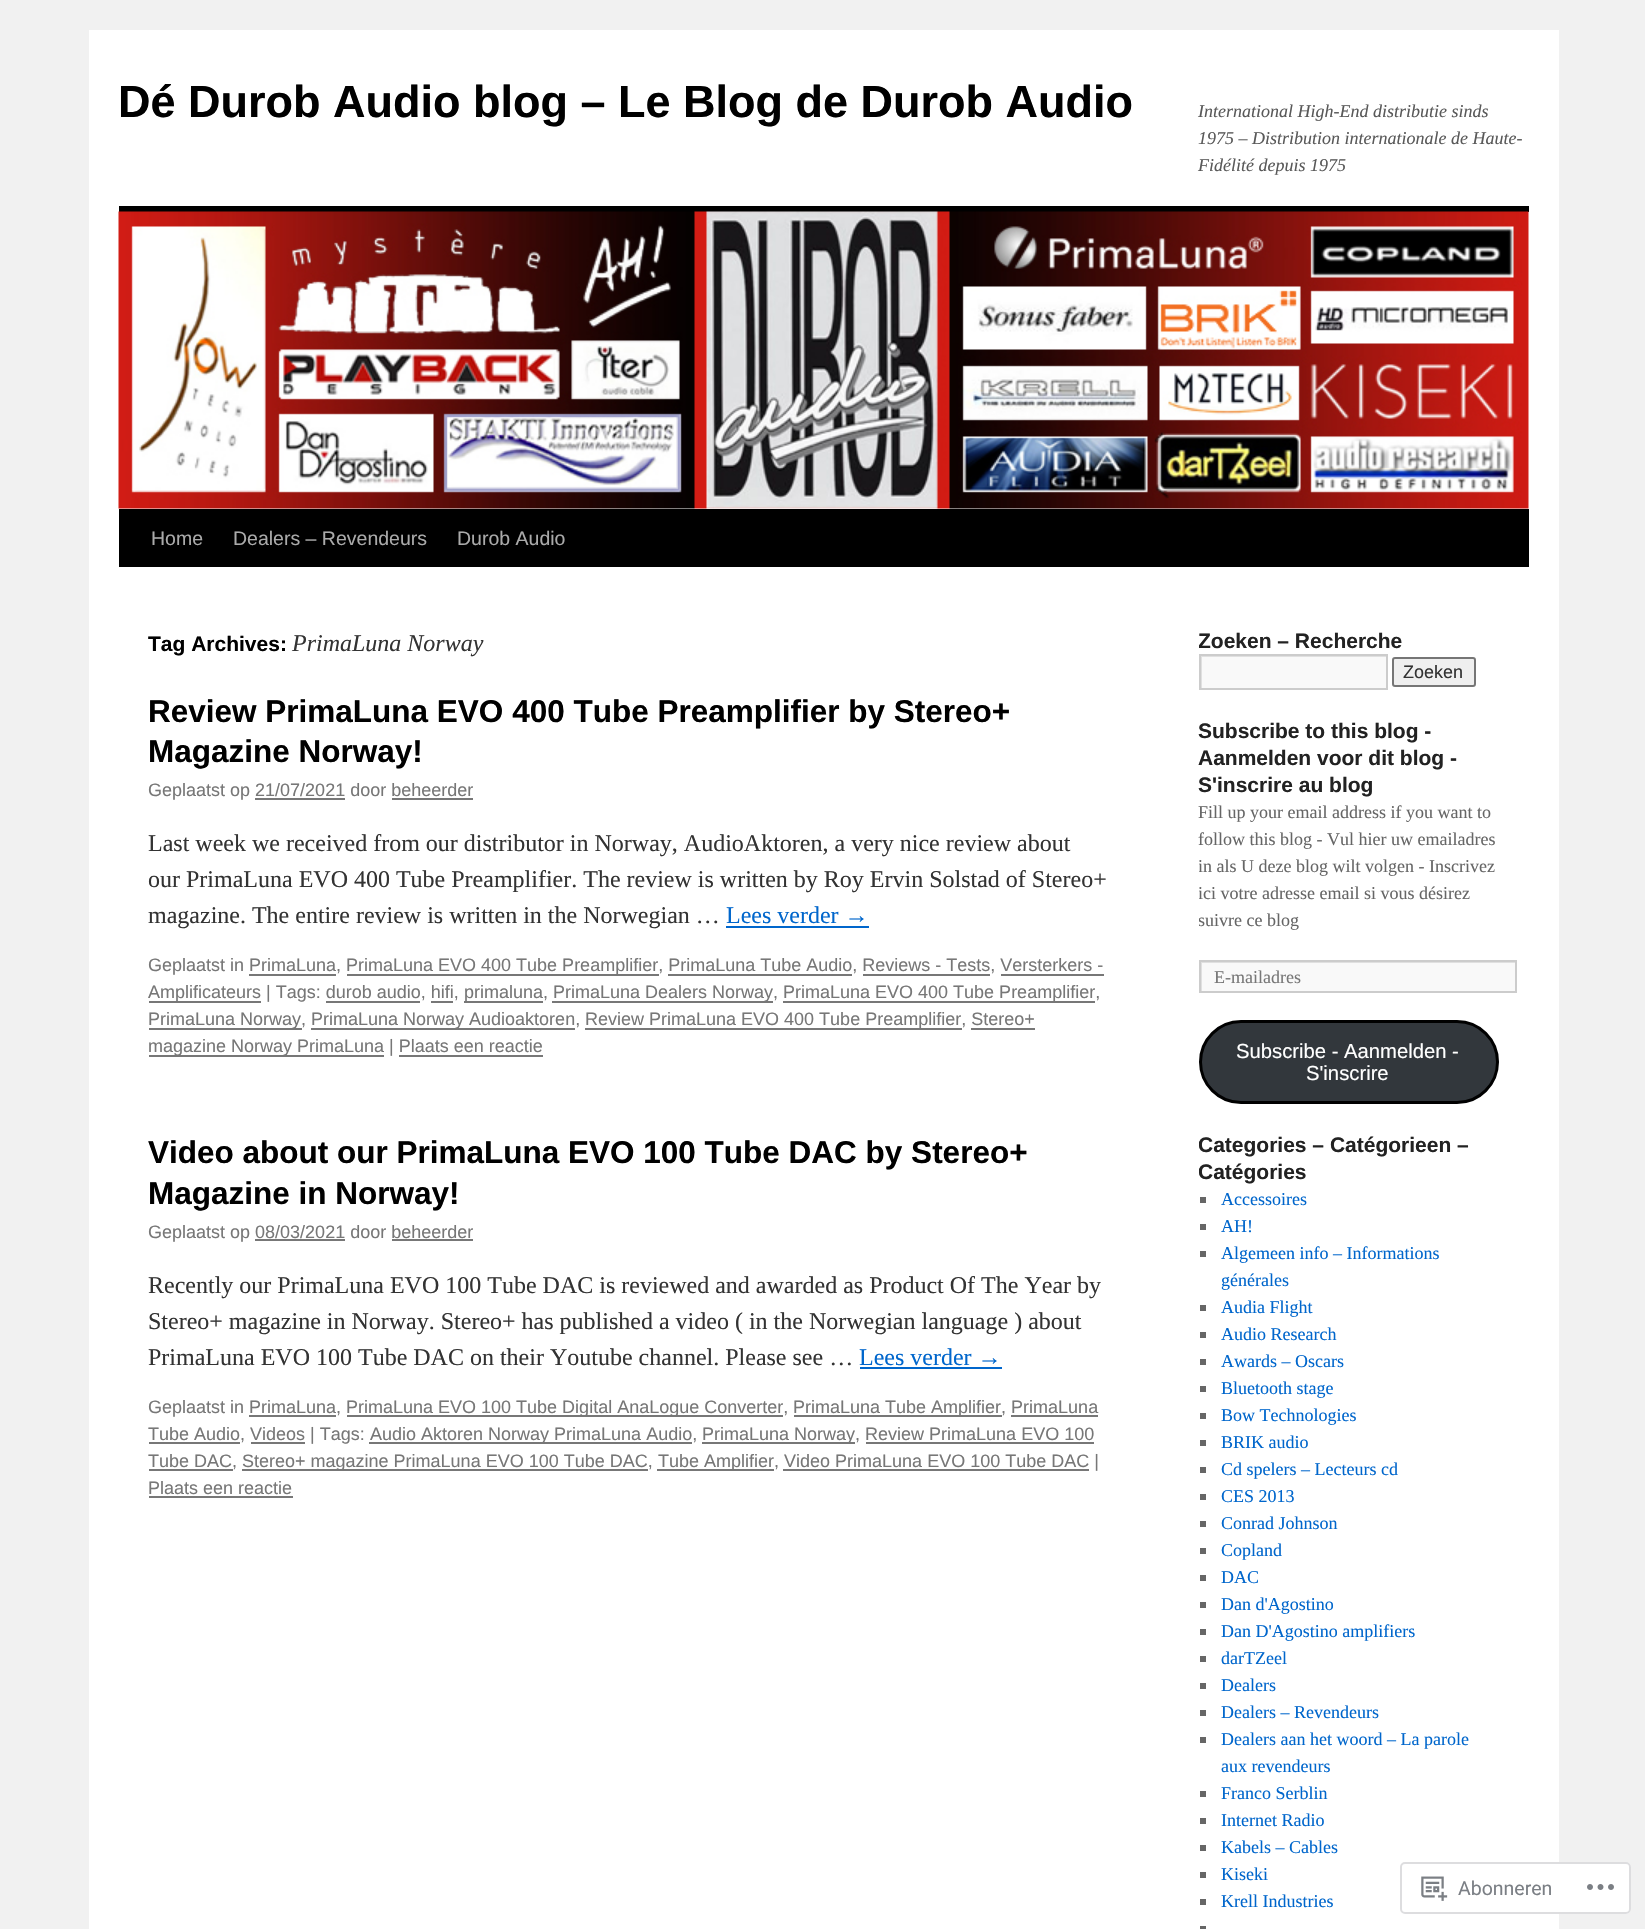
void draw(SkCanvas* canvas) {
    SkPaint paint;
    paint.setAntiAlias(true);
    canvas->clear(0xFFF1F1F1);
    paint.setColor(0xFFFFFFFF);
    canvas->drawRect(SkRect::MakeXYWH(89, 30, 1470, 1899), paint);
    SkFont font1(fontMgr->matchFamilyStyle("Liberation Sans", SkFontStyle::Bold()), 45);
    font1.setSubpixel(true);
    paint.setColor(0xFF000000);
    canvas->drawString("Dé Durob Audio blog – Le Blog de Durob Audio", 118, 117, font1, paint);
    SkFont font2(fontMgr->matchFamilyStyle("Liberation Serif", SkFontStyle::Italic()), 18);
    font2.setSubpixel(true);
    paint.setColor(0xFF595959);
    canvas->drawString("International High-End distributie sinds", 1198, 117, font2, paint);
    canvas->drawString("1975 – Distribution internationale de Haute-", 1198, 144, font2, paint);
    canvas->drawString("Fidélité depuis 1975", 1198, 171, font2, paint);
    paint.setColor(0xFF000000);
    canvas->drawRect(SkRect::MakeXYWH(119, 206, 1410, 6), paint);
    canvas->drawRect(SkRect::MakeXYWH(119, 509, 1410, 58), paint);
    canvas->drawImageRect(SkImages::DeferredFromEncodedData(SkData::MakeFromFileName("img1.png")), SkRect::MakeXYWH(118, 211, 1411, 298), SkSamplingOptions());
    SkFont font3(fontMgr->matchFamilyStyle("Liberation Sans", SkFontStyle::Normal()), 19.5f);
    font3.setSubpixel(true);
    paint.setColor(0xFFAAAAAA);
    canvas->drawString("Home", 151, 545, font3, paint);
    canvas->drawString("Dealers – Revendeurs", 233, 545, font3, paint);
    canvas->drawString("Durob Audio", 457, 545, font3, paint);
    SkFont font4(fontMgr->matchFamilyStyle("Liberation Sans", SkFontStyle::Bold()), 21);
    font4.setSubpixel(true);
    paint.setColor(0xFF000000);
    canvas->drawString("Tag Archives:", 148, 651, font4, paint);
    SkFont font5(fontMgr->matchFamilyStyle("Liberation Serif", SkFontStyle::Italic()), 24);
    font5.setSubpixel(true);
    paint.setColor(0xFF333333);
    canvas->drawString("PrimaLuna Norway", 292, 651, font5, paint);
    SkFont font6(fontMgr->matchFamilyStyle("Liberation Sans", SkFontStyle::Bold()), 31.5f);
    font6.setSubpixel(true);
    paint.setColor(0xFF000000);
    canvas->drawString("Review PrimaLuna EVO 400 Tube Preamplifier by Stereo+", 148, 722, font6, paint);
    canvas->drawString("Magazine Norway!", 148, 762, font6, paint);
    SkFont font7(fontMgr->matchFamilyStyle("Liberation Sans", SkFontStyle::Normal()), 18);
    font7.setSubpixel(true);
    paint.setColor(0xFF777777);
    canvas->drawString("Geplaatst op 21/07/2021 door beheerder", 148, 796, font7, paint);
    canvas->drawRect(SkRect::MakeXYWH(255, 798, 90, 2), paint);
    canvas->drawRect(SkRect::MakeXYWH(392, 798, 81, 2), paint);
    SkFont font8(fontMgr->matchFamilyStyle("Liberation Serif", SkFontStyle::Normal()), 24);
    font8.setSubpixel(true);
    paint.setColor(0xFF333333);
    canvas->drawString("Last week we received from our distributor in Norway, AudioAktoren, a very nice review about", 148, 851, font8, paint);
    canvas->drawString("our PrimaLuna EVO 400 Tube Preamplifier. The review is written by Roy Ervin Solstad of Stereo+", 148, 887, font8, paint);
    canvas->drawString("magazine. The entire review is written in the Norwegian …", 148, 923, font8, paint);
    paint.setColor(0xFF0066CC);
    canvas->drawString("Lees verder →", 726, 923, font8, paint);
    canvas->drawRect(SkRect::MakeXYWH(726, 926, 143, 2), paint);
    paint.setColor(0xFF777777);
    canvas->drawString("Geplaatst in PrimaLuna,", 148, 971, font7, paint);
    canvas->drawRect(SkRect::MakeXYWH(249, 974, 87, 2), paint);
    canvas->drawRect(SkRect::MakeXYWH(347, 974, 312, 2), paint);
    canvas->drawString("PrimaLuna EVO 400 Tube Preamplifier, PrimaLuna Tube Audio, Reviews - Tests, Versterkers -", 346, 971, font7, paint);
    canvas->drawRect(SkRect::MakeXYWH(668, 974, 184, 2), paint);
    canvas->drawRect(SkRect::MakeXYWH(863, 974, 127, 2), paint);
    canvas->drawRect(SkRect::MakeXYWH(1001, 974, 103, 2), paint);
    canvas->drawRect(SkRect::MakeXYWH(149, 1001, 112, 2), paint);
    canvas->drawString("Amplificateurs | Tags: durob audio, hifi,", 148, 998, font7, paint);
    canvas->drawRect(SkRect::MakeXYWH(464, 1001, 79, 2), paint);
    canvas->drawString("primaluna,", 464, 998, font7, paint);
    canvas->drawRect(SkRect::MakeXYWH(431, 1001, 22, 2), paint);
    canvas->drawRect(SkRect::MakeXYWH(552, 1001, 221, 2), paint);
    canvas->drawString("PrimaLuna Dealers Norway,", 553, 998, font7, paint);
    canvas->drawRect(SkRect::MakeXYWH(783, 1001, 312, 2), paint);
    canvas->drawString("PrimaLuna EVO 400 Tube Preamplifier,", 783, 998, font7, paint);
    canvas->drawRect(SkRect::MakeXYWH(149, 1028, 153, 2), paint);
    canvas->drawString("PrimaLuna Norway,", 148, 1025, font7, paint);
    canvas->drawRect(SkRect::MakeXYWH(311, 1028, 264, 2), paint);
    canvas->drawString("PrimaLuna Norway Audioaktoren,", 311, 1025, font7, paint);
    canvas->drawRect(SkRect::MakeXYWH(326, 1001, 94, 2), paint);
    canvas->drawRect(SkRect::MakeXYWH(585, 1028, 377, 2), paint);
    canvas->drawString("Review PrimaLuna EVO 400 Tube Preamplifier, Stereo+", 585, 1025, font7, paint);
    canvas->drawRect(SkRect::MakeXYWH(971, 1028, 64, 2), paint);
    canvas->drawRect(SkRect::MakeXYWH(149, 1055, 235, 2), paint);
    canvas->drawString("magazine Norway PrimaLuna | Plaats een reactie", 148, 1052, font7, paint);
    canvas->drawRect(SkRect::MakeXYWH(399, 1055, 144, 2), paint);
    paint.setColor(0xFF000000);
    canvas->drawString("Video about our PrimaLuna EVO 100 Tube DAC by Stereo+", 148, 1163, font6, paint);
    canvas->drawString("Magazine in Norway!", 148, 1204, font6, paint);
    paint.setColor(0xFF777777);
    canvas->drawString("Geplaatst op 08/03/2021 door beheerder", 148, 1238, font7, paint);
    canvas->drawRect(SkRect::MakeXYWH(255, 1239, 90, 2), paint);
    canvas->drawRect(SkRect::MakeXYWH(392, 1239, 81, 2), paint);
    paint.setColor(0xFF333333);
    canvas->drawString("Recently our PrimaLuna EVO 100 Tube DAC is reviewed and awarded as Product Of The Year by", 148, 1293, font8, paint);
    canvas->drawString("Stereo+ magazine in Norway. Stereo+ has published a video ( in the Norwegian language ) about", 148, 1329, font8, paint);
    canvas->drawString("PrimaLuna EVO 100 Tube DAC on their Youtube channel. Please see …", 148, 1365, font8, paint);
    paint.setColor(0xFF0066CC);
    canvas->drawString("Lees verder →", 859, 1365, font8, paint);
    canvas->drawRect(SkRect::MakeXYWH(860, 1367, 142, 2), paint);
    paint.setColor(0xFF777777);
    canvas->drawString("Geplaatst in PrimaLuna,", 148, 1413, font7, paint);
    canvas->drawRect(SkRect::MakeXYWH(249, 1415, 87, 2), paint);
    canvas->drawRect(SkRect::MakeXYWH(347, 1415, 436, 2), paint);
    canvas->drawString("PrimaLuna EVO 100 Tube Digital AnaLogue Converter,", 346, 1413, font7, paint);
    canvas->drawRect(SkRect::MakeXYWH(794, 1415, 208, 2), paint);
    canvas->drawString("PrimaLuna Tube Amplifier, PrimaLuna", 793, 1413, font7, paint);
    canvas->drawRect(SkRect::MakeXYWH(1011, 1415, 87, 2), paint);
    canvas->drawRect(SkRect::MakeXYWH(149, 1442, 91, 2), paint);
    canvas->drawString("Tube Audio, Videos | Tags:", 148, 1440, font7, paint);
    canvas->drawRect(SkRect::MakeXYWH(251, 1442, 54, 2), paint);
    canvas->drawRect(SkRect::MakeXYWH(369, 1442, 323, 2), paint);
    canvas->drawString("Audio Aktoren Norway PrimaLuna Audio,", 370, 1440, font7, paint);
    canvas->drawRect(SkRect::MakeXYWH(702, 1442, 153, 2), paint);
    canvas->drawString("PrimaLuna Norway, Review PrimaLuna EVO 100", 702, 1440, font7, paint);
    canvas->drawRect(SkRect::MakeXYWH(866, 1442, 228, 2), paint);
    canvas->drawRect(SkRect::MakeXYWH(149, 1469, 84, 2), paint);
    canvas->drawString("Tube DAC,", 148, 1467, font7, paint);
    canvas->drawRect(SkRect::MakeXYWH(242, 1469, 406, 2), paint);
    canvas->drawString("Stereo+ magazine PrimaLuna EVO 100 Tube DAC,", 242, 1467, font7, paint);
    canvas->drawRect(SkRect::MakeXYWH(657, 1469, 117, 2), paint);
    canvas->drawString("Tube Amplifier, Video PrimaLuna EVO 100 Tube DAC |", 658, 1467, font7, paint);
    canvas->drawRect(SkRect::MakeXYWH(783, 1469, 306, 2), paint);
    canvas->drawString("Plaats een reactie", 148, 1494, font7, paint);
    canvas->drawRect(SkRect::MakeXYWH(149, 1496, 144, 2), paint);
    canvas->save();
    canvas->clipRect(SkRect::MakeXYWH(1199, 627, 330, 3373));
    paint.setColor(0xFF222222);
    canvas->drawString("Zoeken – Recherche", 1198, 648, font4, paint);
    canvas->restore();
    paint.setColor(0xFFF9F9F9);
    canvas->drawRect(SkRect::MakeXYWH(1202, 657, 184, 31), paint);
    canvas->save();
    canvas->clipRect(SkRect::MakeXYWH(1200, 656, 186, 33));
    paint.setColor(0xFFE0E0E0);
    canvas->drawPath(SkPathBuilder(SkPathFillType::kEvenOdd).moveTo(1052, 507).lineTo(1534, 507).lineTo(1534, 837).lineTo(1052, 837).close().moveTo(1202, 657).lineTo(1388, 657).lineTo(1388, 690).lineTo(1202, 690).close().detach(), paint);
    canvas->restore();
    paint.setStyle(SkPaint::kStroke_Style);
    paint.setStrokeWidth(2);
    paint.setColor(0xFFCCCCCC);
    canvas->drawRect(SkRect::MakeXYWH(1200, 655, 187, 34), paint);
    paint.setStyle(SkPaint::kFill_Style);
    paint.setColor(0xFFEFEFEF);
    canvas->drawRoundRect(SkRect::MakeXYWH(1393, 658, 82, 28), 2, 2, paint);
    paint.setStyle(SkPaint::kStroke_Style);
    paint.setColor(0xFF767676);
    canvas->drawRoundRect(SkRect::MakeXYWH(1393, 658, 82, 28), 2, 2, paint);
    paint.setStyle(SkPaint::kFill_Style);
    paint.setColor(0xFF333333);
    canvas->drawString("Zoeken", 1403, 678, font7, paint);
    paint.setColor(0xFF222222);
    canvas->drawString("Subscribe to this blog -", 1198, 738, font4, paint);
    canvas->drawString("Aanmelden voor dit blog -", 1198, 765, font4, paint);
    canvas->drawString("S'inscrire au blog", 1198, 792, font4, paint);
    SkFont font9(fontMgr->matchFamilyStyle("Liberation Serif", SkFontStyle::Normal()), 18);
    font9.setSubpixel(true);
    paint.setColor(0xFF666666);
    canvas->drawString("Fill up your email address if you want to", 1198, 818, font9, paint);
    canvas->drawString("follow this blog - Vul hier uw emailadres", 1198, 845, font9, paint);
    canvas->save();
    canvas->clipRect(SkRect::MakeXYWH(1199, 627, 330, 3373));
    canvas->drawString("in als U deze blog wilt volgen - Inscrivez", 1198, 872, font9, paint);
    canvas->drawString("ici votre adresse email si vous désirez", 1198, 899, font9, paint);
    canvas->drawString("suivre ce blog", 1198, 926, font9, paint);
    canvas->restore();
    paint.setColor(0xFFF9F9F9);
    canvas->drawRect(SkRect::MakeXYWH(1202, 963, 313, 28), paint);
    canvas->save();
    canvas->clipRect(SkRect::MakeXYWH(1200, 962, 315, 30));
    paint.setColor(0xFFE0E0E0);
    canvas->drawPath(SkPathBuilder(SkPathFillType::kEvenOdd).moveTo(1052, 813).lineTo(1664, 813).lineTo(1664, 1140).lineTo(1052, 1140).close().moveTo(1202, 963).lineTo(1516, 963).lineTo(1516, 993).lineTo(1202, 993).close().detach(), paint);
    canvas->restore();
    paint.setStyle(SkPaint::kStroke_Style);
    paint.setColor(0xFFCCCCCC);
    canvas->drawRect(SkRect::MakeXYWH(1200, 961, 316, 31), paint);
    paint.setStyle(SkPaint::kFill_Style);
    paint.setColor(0xFF777777);
    canvas->drawString("E-mailadres", 1214, 983, font9, paint);
    paint.setColor(0xFF32373C);
    canvas->drawRoundRect(SkRect::MakeXYWH(1200.5f, 1021.5f, 297, 81), 40.5f, 40.5f, paint);
    paint.setStyle(SkPaint::kStroke_Style);
    paint.setStrokeWidth(3);
    paint.setColor(0xFF000000);
    canvas->drawRoundRect(SkRect::MakeXYWH(1200.5f, 1021.5f, 297, 81), 40.5f, 40.5f, paint);
    SkFont font10(fontMgr->matchFamilyStyle("Liberation Sans", SkFontStyle::Normal()), 20.25f);
    font10.setSubpixel(true);
    paint.setStyle(SkPaint::kFill_Style);
    paint.setColor(0xFFFFFFFF);
    canvas->drawString("Subscribe - Aanmelden -", 1236, 1058, font10, paint);
    canvas->drawString("S'inscrire", 1306, 1080, font10, paint);
    canvas->save();
    canvas->clipRect(SkRect::MakeXYWH(1199, 627, 330, 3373));
    paint.setColor(0xFF222222);
    canvas->drawString("Categories – Catégorieen –", 1198, 1152, font4, paint);
    canvas->drawString("Catégories", 1198, 1179, font4, paint);
    canvas->restore();
    paint.setColor(0xFF666666);
    canvas->drawRect(SkRect::MakeXYWH(1200, 1197, 6, 6), paint);
    paint.setColor(0xFF0066CC);
    canvas->drawString("Accessoires", 1221, 1205, font9, paint);
    paint.setColor(0xFF666666);
    canvas->drawRect(SkRect::MakeXYWH(1200, 1224, 6, 6), paint);
    paint.setColor(0xFF0066CC);
    canvas->drawString("AH!", 1221, 1232, font9, paint);
    paint.setColor(0xFF666666);
    canvas->drawRect(SkRect::MakeXYWH(1200, 1251, 6, 6), paint);
    paint.setColor(0xFF0066CC);
    canvas->drawString("Algemeen info – Informations", 1221, 1259, font9, paint);
    canvas->drawString("générales", 1221, 1286, font9, paint);
    paint.setColor(0xFF666666);
    canvas->drawRect(SkRect::MakeXYWH(1200, 1305, 6, 6), paint);
    paint.setColor(0xFF0066CC);
    canvas->drawString("Audia Flight", 1221, 1313, font9, paint);
    paint.setColor(0xFF666666);
    canvas->drawRect(SkRect::MakeXYWH(1200, 1332, 6, 6), paint);
    paint.setColor(0xFF0066CC);
    canvas->drawString("Audio Research", 1221, 1340, font9, paint);
    paint.setColor(0xFF666666);
    canvas->drawRect(SkRect::MakeXYWH(1200, 1359, 6, 6), paint);
    paint.setColor(0xFF0066CC);
    canvas->drawString("Awards – Oscars", 1221, 1367, font9, paint);
    paint.setColor(0xFF666666);
    canvas->drawRect(SkRect::MakeXYWH(1200, 1386, 6, 6), paint);
    paint.setColor(0xFF0066CC);
    canvas->drawString("Bluetooth stage", 1221, 1394, font9, paint);
    paint.setColor(0xFF666666);
    canvas->drawRect(SkRect::MakeXYWH(1200, 1413, 6, 6), paint);
    paint.setColor(0xFF0066CC);
    canvas->drawString("Bow Technologies", 1221, 1421, font9, paint);
    paint.setColor(0xFF666666);
    canvas->drawRect(SkRect::MakeXYWH(1200, 1440, 6, 6), paint);
    paint.setColor(0xFF0066CC);
    canvas->drawString("BRIK audio", 1221, 1448, font9, paint);
    paint.setColor(0xFF666666);
    canvas->drawRect(SkRect::MakeXYWH(1200, 1467, 6, 6), paint);
    paint.setColor(0xFF0066CC);
    canvas->drawString("Cd spelers – Lecteurs cd", 1221, 1475, font9, paint);
    paint.setColor(0xFF666666);
    canvas->drawRect(SkRect::MakeXYWH(1200, 1494, 6, 6), paint);
    paint.setColor(0xFF0066CC);
    canvas->drawString("CES 2013", 1221, 1502, font9, paint);
    paint.setColor(0xFF666666);
    canvas->drawRect(SkRect::MakeXYWH(1200, 1521, 6, 6), paint);
    paint.setColor(0xFF0066CC);
    canvas->drawString("Conrad Johnson", 1221, 1529, font9, paint);
    paint.setColor(0xFF666666);
    canvas->drawRect(SkRect::MakeXYWH(1200, 1548, 6, 6), paint);
    paint.setColor(0xFF0066CC);
    canvas->drawString("Copland", 1221, 1556, font9, paint);
    paint.setColor(0xFF666666);
    canvas->drawRect(SkRect::MakeXYWH(1200, 1575, 6, 6), paint);
    paint.setColor(0xFF0066CC);
    canvas->drawString("DAC", 1221, 1583, font9, paint);
    paint.setColor(0xFF666666);
    canvas->drawRect(SkRect::MakeXYWH(1200, 1602, 6, 6), paint);
    paint.setColor(0xFF0066CC);
    canvas->drawString("Dan d'Agostino", 1221, 1610, font9, paint);
    paint.setColor(0xFF666666);
    canvas->drawRect(SkRect::MakeXYWH(1200, 1629, 6, 6), paint);
    paint.setColor(0xFF0066CC);
    canvas->drawString("Dan D'Agostino amplifiers", 1221, 1637, font9, paint);
    paint.setColor(0xFF666666);
    canvas->drawRect(SkRect::MakeXYWH(1200, 1656, 6, 6), paint);
    paint.setColor(0xFF0066CC);
    canvas->drawString("darTZeel", 1221, 1664, font9, paint);
    paint.setColor(0xFF666666);
    canvas->drawRect(SkRect::MakeXYWH(1200, 1683, 6, 6), paint);
    paint.setColor(0xFF0066CC);
    canvas->drawString("Dealers", 1221, 1691, font9, paint);
    paint.setColor(0xFF666666);
    canvas->drawRect(SkRect::MakeXYWH(1200, 1710, 6, 6), paint);
    paint.setColor(0xFF0066CC);
    canvas->drawString("Dealers – Revendeurs", 1221, 1718, font9, paint);
    paint.setColor(0xFF666666);
    canvas->drawRect(SkRect::MakeXYWH(1200, 1737, 6, 6), paint);
    paint.setColor(0xFF0066CC);
    canvas->drawString("Dealers aan het woord – La parole", 1221, 1745, font9, paint);
    canvas->drawString("aux revendeurs", 1221, 1772, font9, paint);
    paint.setColor(0xFF666666);
    canvas->drawRect(SkRect::MakeXYWH(1200, 1791, 6, 6), paint);
    paint.setColor(0xFF0066CC);
    canvas->drawString("Franco Serblin", 1221, 1799, font9, paint);
    paint.setColor(0xFF666666);
    canvas->drawRect(SkRect::MakeXYWH(1200, 1818, 6, 6), paint);
    paint.setColor(0xFF0066CC);
    canvas->drawString("Internet Radio", 1221, 1826, font9, paint);
    paint.setColor(0xFF666666);
    canvas->drawRect(SkRect::MakeXYWH(1200, 1845, 6, 6), paint);
    paint.setColor(0xFF0066CC);
    canvas->drawString("Kabels – Cables", 1221, 1853, font9, paint);
    paint.setColor(0xFF666666);
    canvas->drawRect(SkRect::MakeXYWH(1200, 1872, 6, 6), paint);
    paint.setColor(0xFF0066CC);
    canvas->drawString("Kiseki", 1221, 1880, font9, paint);
    paint.setColor(0xFF666666);
    canvas->drawRect(SkRect::MakeXYWH(1200, 1899, 6, 6), paint);
    paint.setColor(0xFF0066CC);
    canvas->drawString("Krell Industries", 1221, 1907, font9, paint);
    paint.setColor(0xFF666666);
    canvas->drawRect(SkRect::MakeXYWH(1200, 1926, 6, 3), paint);
    paint.setColor(0xFAFFFFFF);
    canvas->drawRoundRect(SkRect::MakeXYWH(1400, 1862, 231, 52), 5, 5, paint);
    paint.setStyle(SkPaint::kStroke_Style);
    paint.setStrokeWidth(2);
    paint.setColor(0xFADCDCDE);
    canvas->drawRoundRect(SkRect::MakeXYWH(1401, 1863, 229, 50), 4, 4, paint);
    canvas->drawImageRect(SkImages::DeferredFromEncodedData(SkData::MakeFromFileName("img2.png")), SkRect::MakeXYWH(1421, 1876, 27, 25), SkSamplingOptions());
    SkFont font11(fontMgr->matchFamilyStyle("Roboto", SkFontStyle::Normal()), 19.5f);
    font11.setSubpixel(true);
    paint.setStyle(SkPaint::kFill_Style);
    paint.setColor(0xFF7B7F85);
    canvas->drawString("Abonneren", 1458, 1895, font11, paint);
    canvas->drawImageRect(SkImages::DeferredFromEncodedData(SkData::MakeFromFileName("img3.png")), SkRect::MakeXYWH(1587, 1884, 27, 6), SkSamplingOptions());
}
